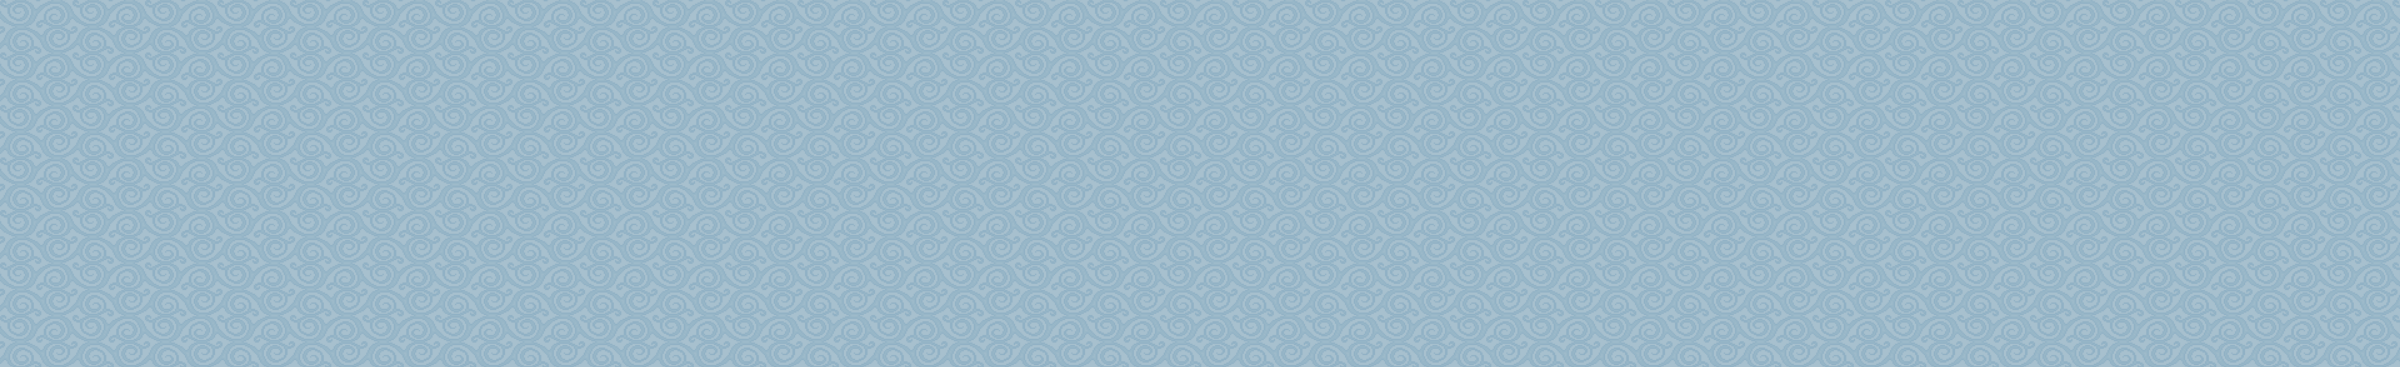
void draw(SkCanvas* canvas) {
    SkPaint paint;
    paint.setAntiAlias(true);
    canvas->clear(0xFFFFFFFF);
    canvas->drawImageRect(SkImages::DeferredFromEncodedData(SkData::MakeFromFileName("img1.png")), SkRect::MakeXYWH(0, 0, 2400, 367), SkSamplingOptions());
}
